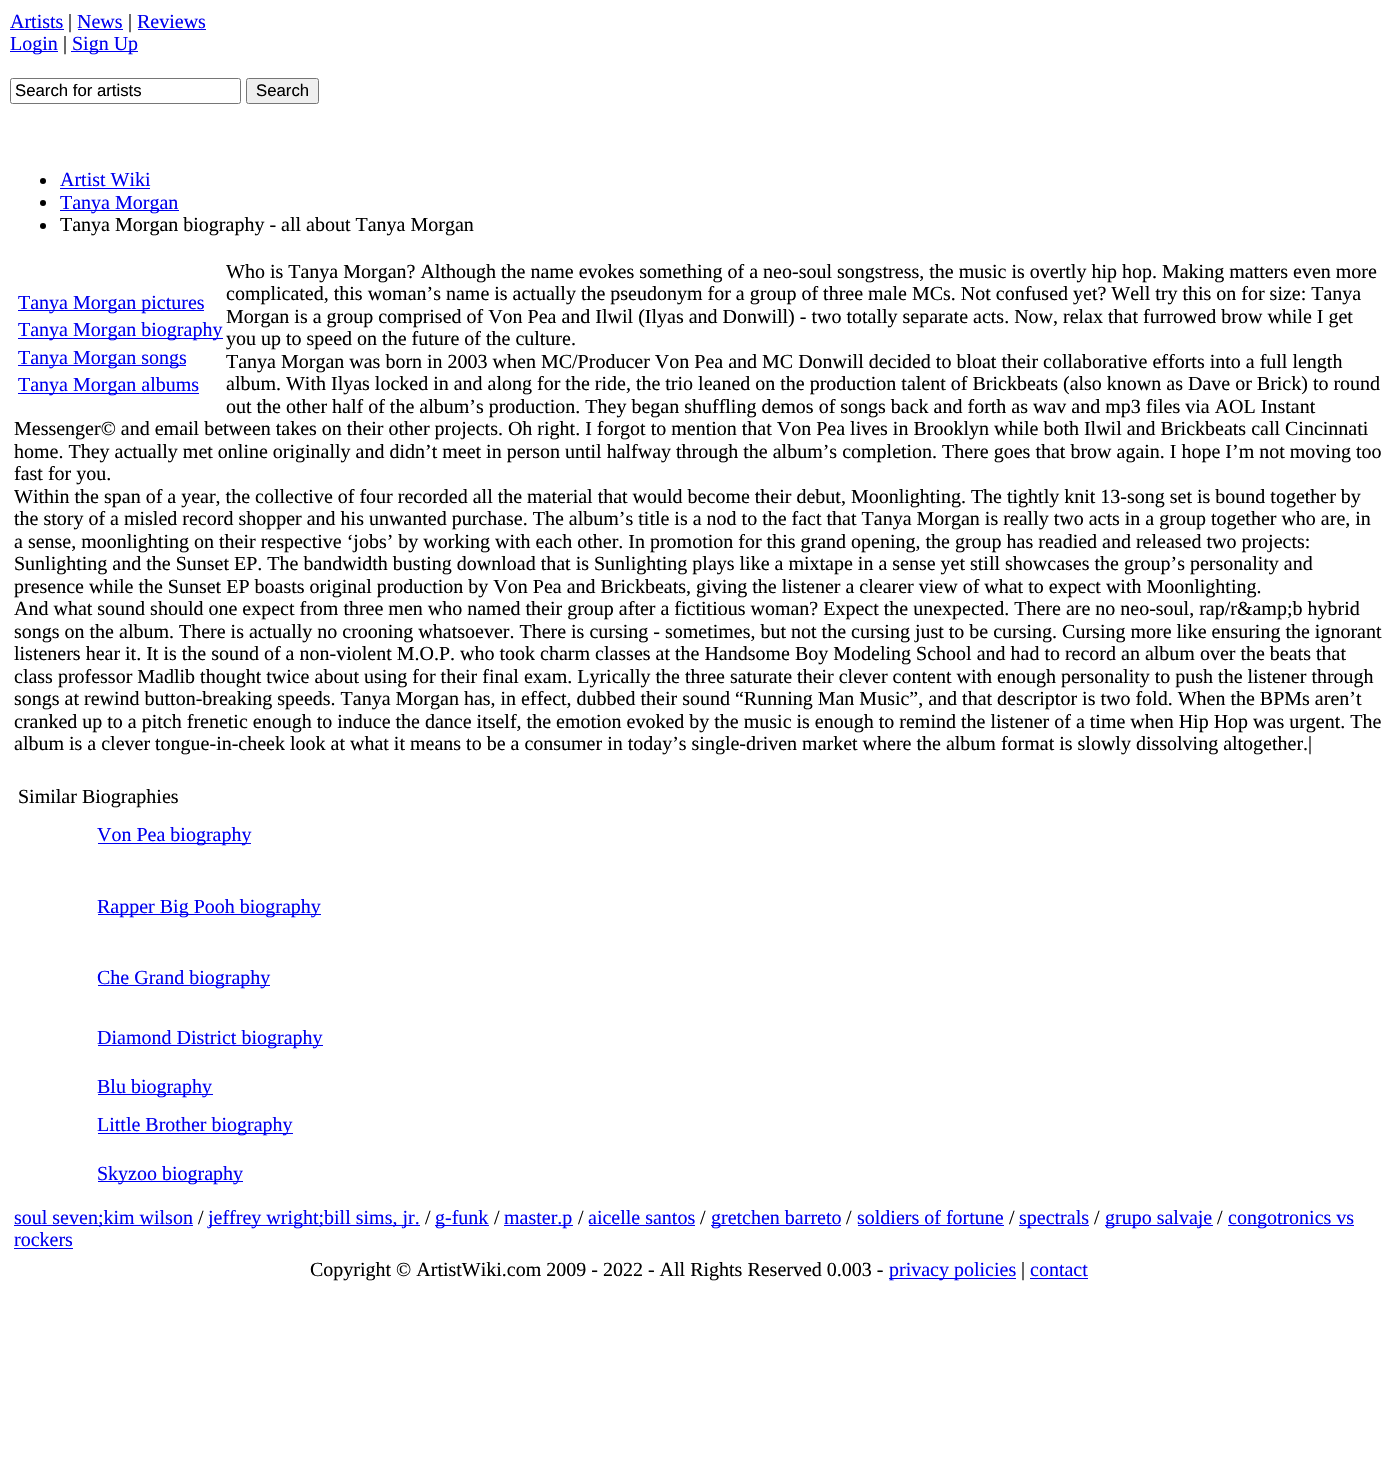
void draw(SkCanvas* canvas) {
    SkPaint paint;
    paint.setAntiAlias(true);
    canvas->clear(0xFFFFFFFF);
    SkFont font1(fontMgr->matchFamilyStyle("Liberation Serif", SkFontStyle::Normal()), 20);
    font1.setSubpixel(true);
    paint.setColor(0xFF0000EE);
    canvas->drawString("Artists", 10, 28, font1, paint);
    canvas->drawRect(SkRect::MakeXYWH(10, 29, 54, 1), paint);
    paint.setColor(0xFF000000);
    canvas->drawString("|", 68, 28, font1, paint);
    paint.setColor(0xFF0000EE);
    canvas->drawString("News", 77, 28, font1, paint);
    canvas->drawRect(SkRect::MakeXYWH(78, 29, 45, 1), paint);
    paint.setColor(0xFF000000);
    canvas->drawString("|", 128, 28, font1, paint);
    paint.setColor(0xFF0000EE);
    canvas->drawString("Reviews", 137, 28, font1, paint);
    canvas->drawRect(SkRect::MakeXYWH(138, 29, 68, 1), paint);
    canvas->drawRect(SkRect::MakeXYWH(10, 51, 48, 1), paint);
    canvas->drawString("Login", 10, 50, font1, paint);
    paint.setColor(0xFF000000);
    canvas->drawString("|", 63, 50, font1, paint);
    paint.setColor(0xFF0000EE);
    canvas->drawRect(SkRect::MakeXYWH(71, 51, 67, 1), paint);
    canvas->drawString("Sign Up", 72, 50, font1, paint);
    paint.setStyle(SkPaint::kStroke_Style);
    paint.setStrokeWidth(1);
    paint.setColor(0xFF767676);
    canvas->drawRoundRect(SkRect::MakeXYWH(10.5f, 78.5f, 230, 25), 2, 2, paint);
    SkFont font2(fontMgr->matchFamilyStyle("Liberation Sans", SkFontStyle::Normal()), 16.75f);
    font2.setSubpixel(true);
    paint.setStyle(SkPaint::kFill_Style);
    paint.setColor(0xFF000000);
    canvas->drawString("Search for artists", 15, 96, font2, paint);
    paint.setColor(0xFFEFEFEF);
    canvas->drawRoundRect(SkRect::MakeXYWH(246.5f, 78.5f, 72, 25), 2, 2, paint);
    paint.setStyle(SkPaint::kStroke_Style);
    paint.setColor(0xFF767676);
    canvas->drawRoundRect(SkRect::MakeXYWH(246.5f, 78.5f, 72, 25), 2, 2, paint);
    paint.setStyle(SkPaint::kFill_Style);
    paint.setColor(0xFF000000);
    canvas->drawString("Search", 256, 96, font2, paint);
    canvas->drawCircle(43, 181, 3, paint);
    paint.setColor(0xFF0000EE);
    canvas->drawString("Artist Wiki", 60, 186, font1, paint);
    canvas->drawRect(SkRect::MakeXYWH(60, 188, 90, 1), paint);
    paint.setColor(0xFF000000);
    canvas->drawCircle(43, 203, 3, paint);
    paint.setColor(0xFF0000EE);
    canvas->drawRect(SkRect::MakeXYWH(60, 210, 119, 1), paint);
    canvas->drawString("Tanya Morgan", 60, 209, font1, paint);
    paint.setColor(0xFF000000);
    canvas->drawCircle(43, 226, 3, paint);
    canvas->drawString("Tanya Morgan biography - all about Tanya Morgan", 60, 231, font1, paint);
    canvas->drawString("Who is Tanya Morgan? Although the name evokes something of a neo-soul songstress, the music is overtly hip hop. Making matters even more", 226, 278, font1, paint);
    paint.setColor(0xFF0000EE);
    canvas->drawRect(SkRect::MakeXYWH(18, 310, 186, 1), paint);
    canvas->drawString("Tanya Morgan pictures", 18, 309, font1, paint);
    canvas->drawRect(SkRect::MakeXYWH(18, 338, 205, 1), paint);
    canvas->drawString("Tanya Morgan biography", 18, 336, font1, paint);
    canvas->drawRect(SkRect::MakeXYWH(18, 365, 168, 1), paint);
    canvas->drawString("Tanya Morgan songs", 18, 364, font1, paint);
    canvas->drawRect(SkRect::MakeXYWH(18, 393, 181, 1), paint);
    canvas->drawString("Tanya Morgan albums", 18, 391, font1, paint);
    paint.setColor(0xFF000000);
    canvas->drawString("complicated, this woman’s name is actually the pseudonym for a group of three male MCs. Not confused yet? Well try this on for size: Tanya", 226, 300, font1, paint);
    canvas->drawString("Morgan is a group comprised of Von Pea and Ilwil (Ilyas and Donwill) - two totally separate acts. Now, relax that furrowed brow while I get", 226, 323, font1, paint);
    canvas->drawString("you up to speed on the future of the culture.", 226, 345, font1, paint);
    canvas->drawString("Tanya Morgan was born in 2003 when MC/Producer Von Pea and MC Donwill decided to bloat their collaborative efforts into a full length", 226, 368, font1, paint);
    canvas->drawString("album. With Ilyas locked in and along for the ride, the trio leaned on the production talent of Brickbeats (also known as Dave or Brick) to round", 226, 390, font1, paint);
    canvas->drawString("out the other half of the album’s production. They began shuffling demos of songs back and forth as wav and mp3 files via AOL Instant", 226, 413, font1, paint);
    canvas->drawString("Messenger© and email between takes on their other projects. Oh right. I forgot to mention that Von Pea lives in Brooklyn while both Ilwil and Brickbeats call Cincinnati", 14, 435, font1, paint);
    canvas->drawString("home. They actually met online originally and didn’t meet in person until halfway through the album’s completion. There goes that brow again. I hope I’m not moving too", 14, 458, font1, paint);
    canvas->drawString("fast for you.", 14, 480, font1, paint);
    canvas->drawString("Within the span of a year, the collective of four recorded all the material that would become their debut, Moonlighting. The tightly knit 13-song set is bound together by", 14, 503, font1, paint);
    canvas->drawString("the story of a misled record shopper and his unwanted purchase. The album’s title is a nod to the fact that Tanya Morgan is really two acts in a group together who are, in", 14, 525, font1, paint);
    canvas->drawString("a sense, moonlighting on their respective ‘jobs’ by working with each other. In promotion for this grand opening, the group has readied and released two projects:", 14, 548, font1, paint);
    canvas->drawString("Sunlighting and the Sunset EP. The bandwidth busting download that is Sunlighting plays like a mixtape in a sense yet still showcases the group’s personality and", 14, 570, font1, paint);
    canvas->drawString("presence while the Sunset EP boasts original production by Von Pea and Brickbeats, giving the listener a clearer view of what to expect with Moonlighting.", 14, 593, font1, paint);
    canvas->drawString("And what sound should one expect from three men who named their group after a fictitious woman? Expect the unexpected. There are no neo-soul, rap/r&amp;b hybrid", 14, 615, font1, paint);
    canvas->drawString("songs on the album. There is actually no crooning whatsoever. There is cursing - sometimes, but not the cursing just to be cursing. Cursing more like ensuring the ignorant", 14, 638, font1, paint);
    canvas->drawString("listeners hear it. It is the sound of a non-violent M.O.P. who took charm classes at the Handsome Boy Modeling School and had to record an album over the beats that", 14, 660, font1, paint);
    canvas->drawString("class professor Madlib thought twice about using for their final exam. Lyrically the three saturate their clever content with enough personality to push the listener through", 14, 683, font1, paint);
    canvas->drawString("songs at rewind button-breaking speeds. Tanya Morgan has, in effect, dubbed their sound “Running Man Music”, and that descriptor is two fold. When the BPMs aren’t", 14, 705, font1, paint);
    canvas->drawString("cranked up to a pitch frenetic enough to induce the dance itself, the emotion evoked by the music is enough to remind the listener of a time when Hip Hop was urgent. The", 14, 728, font1, paint);
    canvas->drawString("album is a clever tongue-in-cheek look at what it means to be a consumer in today’s single-driven market where the album format is slowly dissolving altogether.|", 14, 750, font1, paint);
    canvas->drawString("Similar Biographies", 18, 803, font1, paint);
    paint.setColor(0xFF0000EE);
    canvas->drawRect(SkRect::MakeXYWH(98, 843, 153, 1), paint);
    canvas->drawString("Von Pea biography", 97, 841, font1, paint);
    canvas->drawRect(SkRect::MakeXYWH(98, 914, 223, 1), paint);
    canvas->drawString("Rapper Big Pooh biography", 97, 913, font1, paint);
    canvas->drawRect(SkRect::MakeXYWH(98, 985, 172, 1), paint);
    canvas->drawString("Che Grand biography", 97, 984, font1, paint);
    canvas->drawRect(SkRect::MakeXYWH(98, 1045, 225, 1), paint);
    canvas->drawString("Diamond District biography", 97, 1044, font1, paint);
    canvas->drawRect(SkRect::MakeXYWH(98, 1094, 115, 1), paint);
    canvas->drawString("Blu biography", 97, 1093, font1, paint);
    canvas->drawRect(SkRect::MakeXYWH(98, 1133, 195, 1), paint);
    canvas->drawString("Little Brother biography", 97, 1131, font1, paint);
    canvas->drawRect(SkRect::MakeXYWH(98, 1181, 145, 1), paint);
    canvas->drawString("Skyzoo biography", 97, 1180, font1, paint);
    canvas->drawRect(SkRect::MakeXYWH(14, 1225, 179, 1), paint);
    canvas->drawString("soul seven;kim wilson", 14, 1224, font1, paint);
    paint.setColor(0xFF000000);
    canvas->drawString("/", 198, 1224, font1, paint);
    paint.setColor(0xFF0000EE);
    canvas->drawRect(SkRect::MakeXYWH(209, 1225, 211, 1), paint);
    canvas->drawString("jeffrey wright;bill sims, jr.", 208, 1224, font1, paint);
    paint.setColor(0xFF000000);
    canvas->drawString("/", 425, 1224, font1, paint);
    paint.setColor(0xFF0000EE);
    canvas->drawRect(SkRect::MakeXYWH(435, 1225, 54, 1), paint);
    canvas->drawString("g-funk", 435, 1224, font1, paint);
    paint.setColor(0xFF000000);
    canvas->drawString("/", 494, 1224, font1, paint);
    paint.setColor(0xFF0000EE);
    canvas->drawRect(SkRect::MakeXYWH(504, 1225, 69, 1), paint);
    canvas->drawString("master.p", 504, 1224, font1, paint);
    paint.setColor(0xFF000000);
    canvas->drawString("/", 578, 1224, font1, paint);
    paint.setColor(0xFF0000EE);
    canvas->drawString("aicelle santos", 588, 1224, font1, paint);
    canvas->drawRect(SkRect::MakeXYWH(589, 1225, 106, 1), paint);
    paint.setColor(0xFF000000);
    canvas->drawString("/", 700, 1224, font1, paint);
    paint.setColor(0xFF0000EE);
    canvas->drawRect(SkRect::MakeXYWH(711, 1225, 130, 1), paint);
    canvas->drawString("gretchen barreto", 711, 1224, font1, paint);
    paint.setColor(0xFF000000);
    canvas->drawString("/", 846, 1224, font1, paint);
    paint.setColor(0xFF0000EE);
    canvas->drawString("soldiers of fortune", 857, 1224, font1, paint);
    canvas->drawRect(SkRect::MakeXYWH(858, 1225, 146, 1), paint);
    paint.setColor(0xFF000000);
    canvas->drawString("/", 1009, 1224, font1, paint);
    paint.setColor(0xFF0000EE);
    canvas->drawRect(SkRect::MakeXYWH(1019, 1225, 70, 1), paint);
    canvas->drawString("spectrals", 1019, 1224, font1, paint);
    paint.setColor(0xFF000000);
    canvas->drawString("/", 1094, 1224, font1, paint);
    paint.setColor(0xFF0000EE);
    canvas->drawRect(SkRect::MakeXYWH(1105, 1225, 108, 1), paint);
    canvas->drawString("grupo salvaje", 1105, 1224, font1, paint);
    paint.setColor(0xFF000000);
    canvas->drawString("/", 1217, 1224, font1, paint);
    paint.setColor(0xFF0000EE);
    canvas->drawRect(SkRect::MakeXYWH(1228, 1225, 126, 1), paint);
    canvas->drawString("congotronics vs", 1228, 1224, font1, paint);
    canvas->drawString("rockers", 14, 1246, font1, paint);
    canvas->drawRect(SkRect::MakeXYWH(14, 1248, 59, 1), paint);
    paint.setColor(0xFF000000);
    canvas->drawString("Copyright © ArtistWiki.com 2009 - 2022 - All Rights Reserved 0.003 -", 310, 1276, font1, paint);
    paint.setColor(0xFF0000EE);
    canvas->drawRect(SkRect::MakeXYWH(889, 1278, 127, 1), paint);
    canvas->drawString("privacy policies", 889, 1276, font1, paint);
    paint.setColor(0xFF000000);
    canvas->drawString("|", 1021, 1276, font1, paint);
    paint.setColor(0xFF0000EE);
    canvas->drawString("contact", 1030, 1276, font1, paint);
    canvas->drawRect(SkRect::MakeXYWH(1030, 1278, 58, 1), paint);
}
